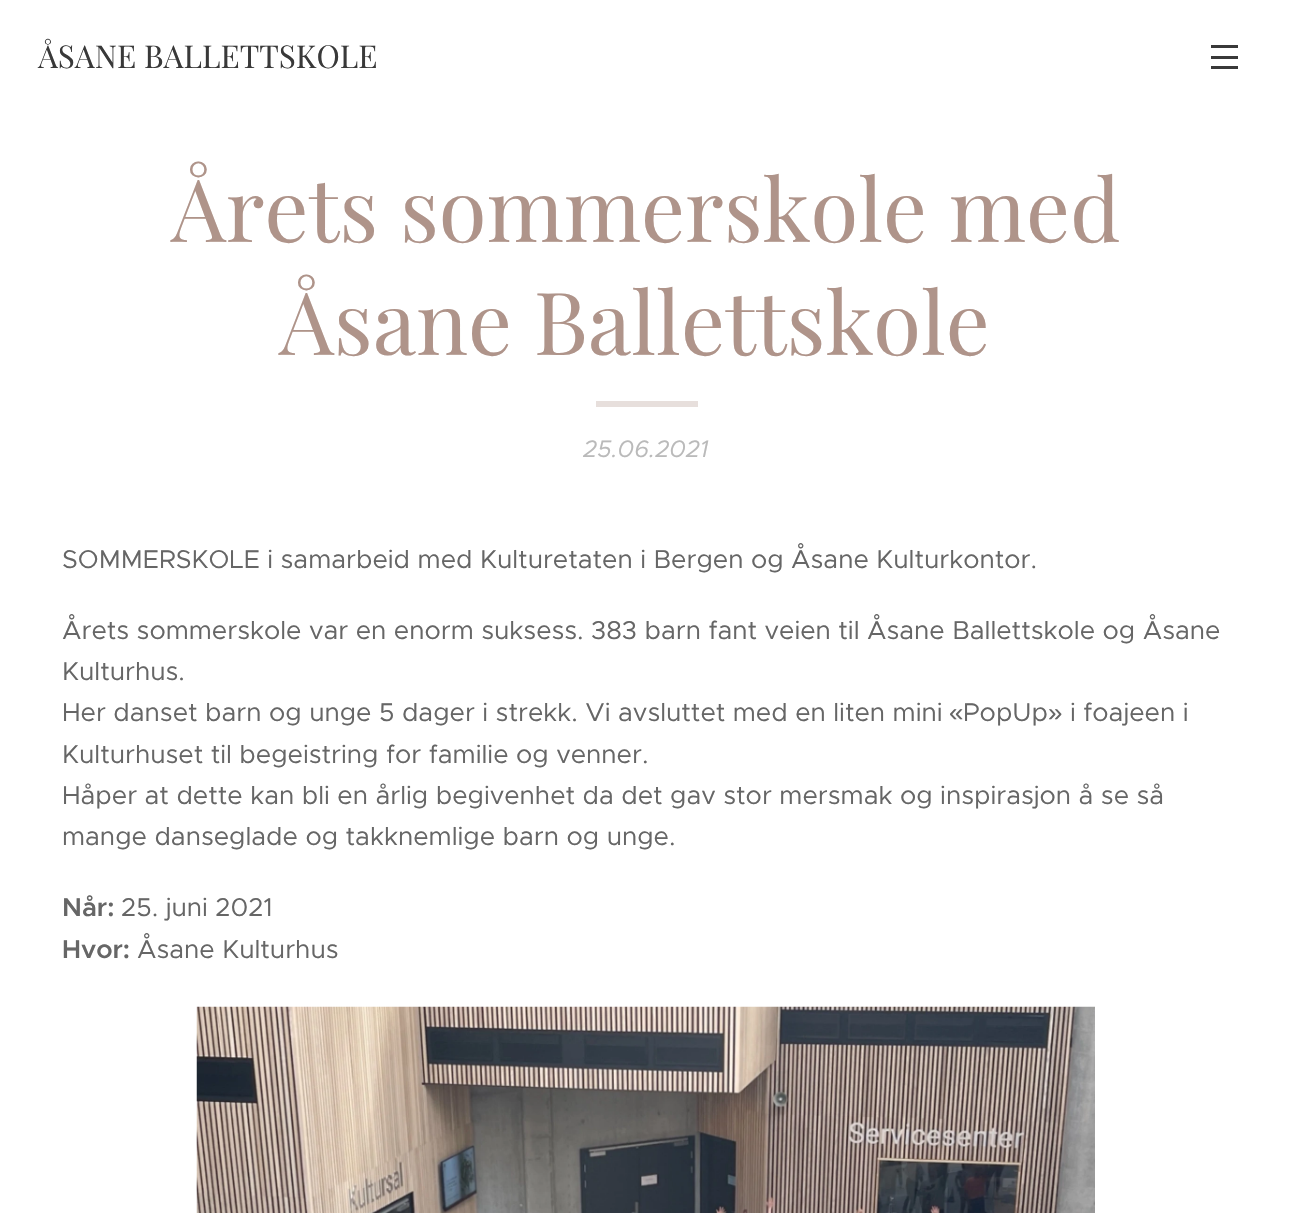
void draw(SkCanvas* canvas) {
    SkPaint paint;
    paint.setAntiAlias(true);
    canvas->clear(0xFFFFFFFF);
    SkFont font1(fontMgr->matchFamilyStyle("Playfair Display", SkFontStyle::Normal()), 31.5f);
    font1.setSubpixel(true);
    paint.setColor(0xFF393939);
    canvas->drawString("ÅSANE BALLETTSKOLE", 38, 68, font1, paint);
    canvas->drawRect(SkRect::MakeXYWH(1211, 56, 27, 3), paint);
    canvas->drawRect(SkRect::MakeXYWH(1211, 45, 27, 3), paint);
    canvas->drawRect(SkRect::MakeXYWH(1211, 66, 27, 3), paint);
    SkFont font2(fontMgr->matchFamilyStyle("Playfair Display", SkFontStyle::Normal()), 87);
    font2.setSubpixel(true);
    paint.setColor(0xFFAF948A);
    canvas->drawString("Årets sommerskole med", 171, 242, font2, paint);
    canvas->drawString("Åsane Ballettskole", 279, 355, font2, paint);
    paint.setColor(0xFFE7DFDC);
    canvas->drawRect(SkRect::MakeXYWH(596, 401, 102, 6), paint);
    SkFont font3(fontMgr->matchFamilyStyle("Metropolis", SkFontStyle::Italic()), 24);
    font3.setSubpixel(true);
    paint.setColor(0xFFBABABA);
    canvas->drawString("25.06.2021", 583, 457, font3, paint);
    SkFont font4(fontMgr->matchFamilyStyle("Metropolis", SkFontStyle::Normal()), 25.8f);
    font4.setSubpixel(true);
    paint.setColor(0xFF666666);
    canvas->drawString("SOMMERSKOLE i samarbeid med Kulturetaten i Bergen og Åsane Kulturkontor.", 62, 568, font4, paint);
    canvas->drawString("Årets sommerskole var en enorm suksess. 383 barn fant veien til Åsane Ballettskole og Åsane", 62, 639, font4, paint);
    canvas->drawString("Kulturhus.", 62, 680, font4, paint);
    canvas->drawString("Her danset barn og unge 5 dager i strekk. Vi avsluttet med en liten mini", 62, 721, font4, paint);
    SkFont font5(fontMgr->matchFamilyStyle("Liberation Sans", SkFontStyle::Normal()), 25.8f);
    font5.setSubpixel(true);
    canvas->drawString("«", 949, 721, font5, paint);
    canvas->drawString("PopUp", 963, 721, font4, paint);
    canvas->drawString("»", 1048, 721, font5, paint);
    canvas->drawString("i foajeen i", 1070, 721, font4, paint);
    canvas->drawString("Kulturhuset til begeistring for familie og venner.", 62, 763, font4, paint);
    canvas->drawString("Håper at dette kan bli en årlig begivenhet da det gav stor mersmak og inspirasjon å se så", 62, 804, font4, paint);
    canvas->drawString("mange danseglade og takknemlige barn og unge.", 62, 845, font4, paint);
    SkFont font6(fontMgr->matchFamilyStyle("Metropolis", SkFontStyle(600, SkFontStyle::kNormal_Width, SkFontStyle::kUpright_Slant)), 25.8f);
    font6.setSubpixel(true);
    canvas->drawString("Når:", 62, 916, font6, paint);
    canvas->drawString("25. juni 2021", 121, 916, font4, paint);
    canvas->drawString("Hvor:", 62, 958, font6, paint);
    canvas->drawString("Åsane Kulturhus", 137, 958, font4, paint);
    canvas->drawImageRect(SkImages::DeferredFromEncodedData(SkData::MakeFromFileName("img1.png")), SkRect::MakeXYWH(196, 1006, 899, 207), SkSamplingOptions());
}
